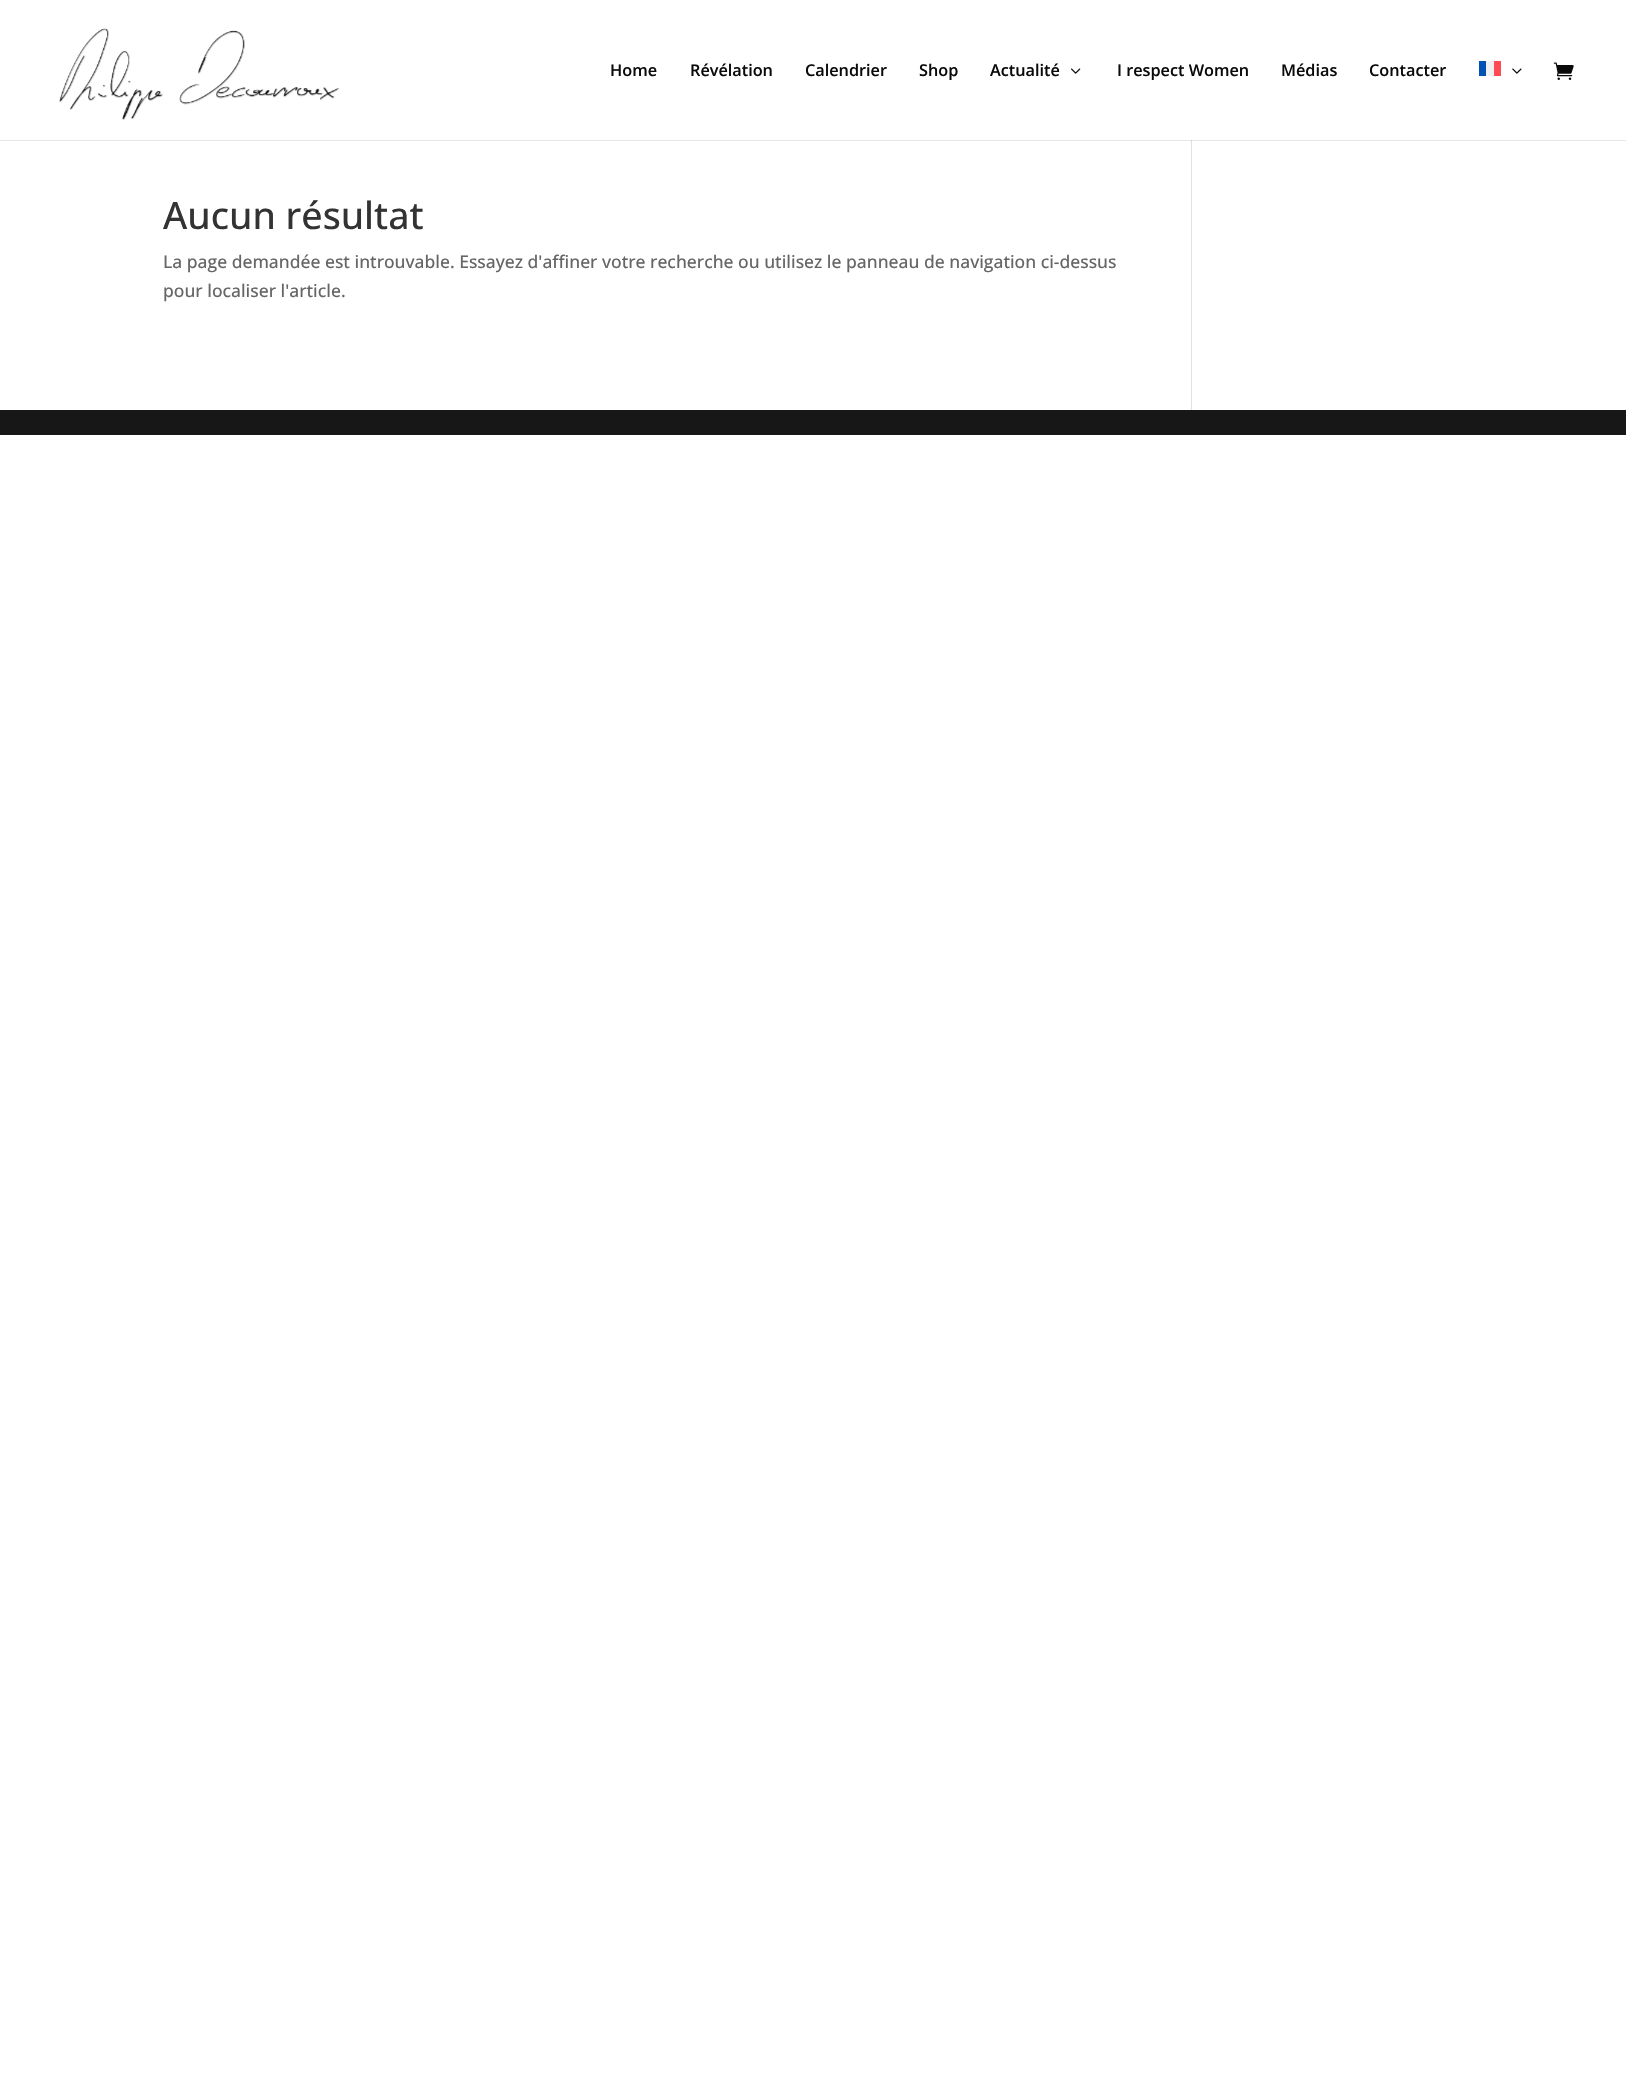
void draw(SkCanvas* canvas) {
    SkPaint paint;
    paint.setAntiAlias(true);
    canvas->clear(0xFFFFFFFF);
    paint.setColor(0xFFE6E6E6);
    canvas->drawRect(SkRect::MakeXYWH(0, 140, 1626, 1), paint);
    canvas->drawImageRect(SkImages::DeferredFromEncodedData(SkData::MakeFromFileName("img1.png")), SkRect::MakeXYWH(59, 28, 281, 92), SkSamplingOptions());
    SkFont font1(fontMgr->matchFamilyStyle("Open Sans", SkFontStyle(600, SkFontStyle::kNormal_Width, SkFontStyle::kUpright_Slant)), 16.25f);
    font1.setSubpixel(true);
    paint.setColor(0xFF0A0A0A);
    canvas->drawString("Home", 610, 76, font1, paint);
    canvas->drawString("Révélation", 690, 76, font1, paint);
    canvas->drawString("Calendrier", 805, 76, font1, paint);
    canvas->drawString("Shop", 919, 76, font1, paint);
    canvas->drawString("Actualité", 990, 76, font1, paint);
    canvas->drawImageRect(SkImages::DeferredFromEncodedData(SkData::MakeFromFileName("img2.png")), SkRect::MakeXYWH(1071, 68, 10, 6), SkSamplingOptions());
    canvas->drawString("I respect Women", 1117, 76, font1, paint);
    canvas->drawString("Médias", 1281, 76, font1, paint);
    canvas->drawString("Contacter", 1369, 76, font1, paint);
    paint.setColor(0xFF0052B4);
    canvas->drawRect(SkRect::MakeXYWH(1479, 61, 7, 15), paint);
    paint.setColor(0xFFF0F0F0);
    canvas->drawRect(SkRect::MakeXYWH(1486, 61, 8, 15), paint);
    paint.setColor(0xFFFF4B55);
    canvas->drawRect(SkRect::MakeXYWH(1494, 61, 7, 15), paint);
    canvas->drawImageRect(SkImages::DeferredFromEncodedData(SkData::MakeFromFileName("img3.png")), SkRect::MakeXYWH(1512, 68, 10, 6), SkSamplingOptions());
    canvas->drawImageRect(SkImages::DeferredFromEncodedData(SkData::MakeFromFileName("img4.png")), SkRect::MakeXYWH(1553, 62, 21, 18), SkSamplingOptions());
    SkFont font2(fontMgr->matchFamilyStyle("Open Sans", SkFontStyle(500, SkFontStyle::kNormal_Width, SkFontStyle::kUpright_Slant)), 37.5f);
    font2.setSubpixel(true);
    paint.setColor(0xFF333333);
    canvas->drawString("Aucun résultat", 163, 229, font2, paint);
    SkFont font3(fontMgr->matchFamilyStyle("Open Sans", SkFontStyle(500, SkFontStyle::kNormal_Width, SkFontStyle::kUpright_Slant)), 17.5f);
    font3.setSubpixel(true);
    paint.setColor(0xFF666666);
    canvas->drawString("La page demandée est introuvable. Essayez d'affiner votre recherche ou utilisez le panneau de navigation ci-dessus", 163, 268, font3, paint);
    canvas->drawString("pour localiser l'article.", 163, 297, font3, paint);
    paint.setColor(0xFFE2E2E2);
    canvas->drawRect(SkRect::MakeXYWH(1191, 141, 1, 269), paint);
    paint.setColor(0xFFCBCBCB);
    canvas->drawRect(SkRect::MakeXYWH(1191, 140, 1, 1), paint);
    paint.setColor(0xFF171717);
    canvas->drawRect(SkRect::MakeXYWH(0, 410, 1626, 25), paint);
}
